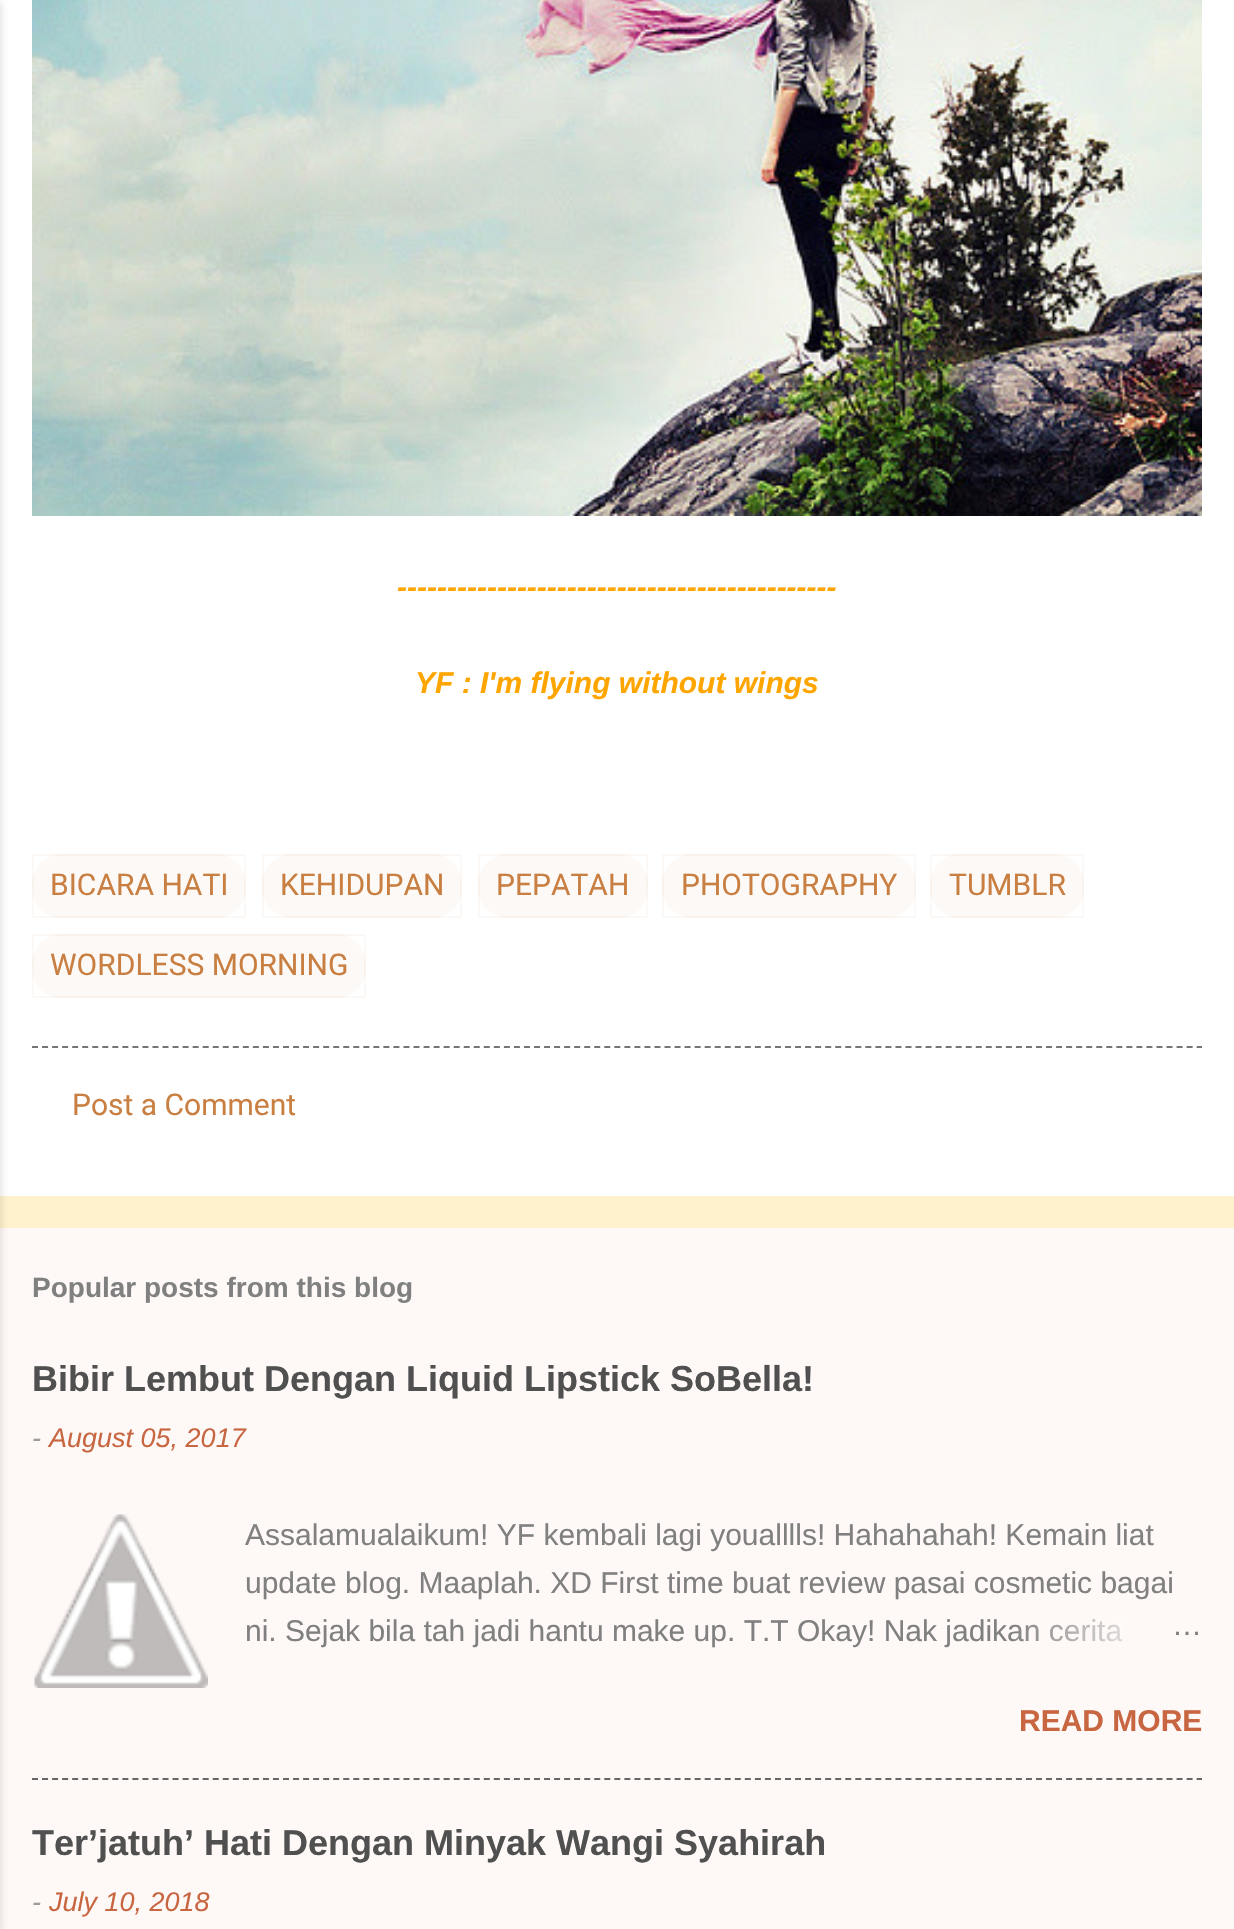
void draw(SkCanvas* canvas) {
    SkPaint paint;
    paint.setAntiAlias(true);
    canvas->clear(0xFFFFF2CC);
    paint.setColor(0xFFFFFFFF);
    canvas->drawRect(SkRect::MakeXYWH(0, 0, 1234, 1196), paint);
    paint.setColor(0xFFFEF9F7);
    canvas->drawRect(SkRect::MakeXYWH(0, 1228, 1234, 701), paint);
    paint.setColor(0x1A000000);
    paint.setMaskFilter(SkMaskFilter::MakeBlur(kNormal_SkBlurStyle, 3));
    canvas->drawRect(SkRect::MakeXYWH(-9, 2, 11, 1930), paint);
    paint.setMaskFilter(nullptr);
    canvas->drawImageRect(SkImages::DeferredFromEncodedData(SkData::MakeFromFileName("img1.png")), SkRect::MakeXYWH(32, 0, 1170, 516), SkSamplingOptions());
    SkFont font1(fontMgr->matchFamilyStyle("Liberation Sans", SkFontStyle::BoldItalic()), 30);
    font1.setSubpixel(true);
    paint.setColor(0xFFFFA500);
    canvas->drawString("--------------------------------------------", 397, 597, font1, paint);
    canvas->drawString("YF : I'm flying without wings", 415, 693, font1, paint);
    paint.setColor(0xFFFCF9F6);
    canvas->drawRoundRect(SkRect::MakeXYWH(32, 854, 214, 64), 30, 30, paint);
    paint.setStyle(SkPaint::kStroke_Style);
    paint.setStrokeWidth(2);
    paint.setColor(0x0DC97F42);
    canvas->drawRect(SkRect::MakeXYWH(33, 855, 212, 62), paint);
    SkFont font2(fontMgr->matchFamilyStyle("Roboto", SkFontStyle::Normal()), 30);
    font2.setSubpixel(true);
    paint.setStyle(SkPaint::kFill_Style);
    paint.setColor(0xFFC97F42);
    canvas->drawString("BICARA HATI", 50, 895, font2, paint);
    paint.setColor(0xFFFCF9F6);
    canvas->drawRoundRect(SkRect::MakeXYWH(262, 854, 200, 64), 30, 30, paint);
    paint.setStyle(SkPaint::kStroke_Style);
    paint.setColor(0x0DC97F42);
    canvas->drawRect(SkRect::MakeXYWH(263, 855, 198, 62), paint);
    paint.setStyle(SkPaint::kFill_Style);
    paint.setColor(0xFFC97F42);
    canvas->drawString("KEHIDUPAN", 280, 895, font2, paint);
    paint.setColor(0xFFFCF9F6);
    canvas->drawRoundRect(SkRect::MakeXYWH(478, 854, 170, 64), 30, 30, paint);
    paint.setStyle(SkPaint::kStroke_Style);
    paint.setColor(0x0DC97F42);
    canvas->drawRect(SkRect::MakeXYWH(479, 855, 168, 62), paint);
    paint.setStyle(SkPaint::kFill_Style);
    paint.setColor(0xFFC97F42);
    canvas->drawString("PEPATAH", 496, 895, font2, paint);
    paint.setColor(0xFFFCF9F6);
    canvas->drawRoundRect(SkRect::MakeXYWH(662, 854, 254, 64), 30, 30, paint);
    paint.setStyle(SkPaint::kStroke_Style);
    paint.setColor(0x0DC97F42);
    canvas->drawRect(SkRect::MakeXYWH(663, 855, 252, 62), paint);
    paint.setStyle(SkPaint::kFill_Style);
    paint.setColor(0xFFC97F42);
    canvas->drawString("PHOTOGRAPHY", 681, 895, font2, paint);
    paint.setColor(0xFFFCF9F6);
    canvas->drawRoundRect(SkRect::MakeXYWH(930, 854, 154, 64), 30, 30, paint);
    paint.setStyle(SkPaint::kStroke_Style);
    paint.setColor(0x0DC97F42);
    canvas->drawRect(SkRect::MakeXYWH(931, 855, 152, 62), paint);
    paint.setStyle(SkPaint::kFill_Style);
    paint.setColor(0xFFC97F42);
    canvas->drawString("TUMBLR", 949, 895, font2, paint);
    paint.setColor(0xFFFCF9F6);
    canvas->drawRoundRect(SkRect::MakeXYWH(32, 934, 334, 64), 30, 30, paint);
    paint.setStyle(SkPaint::kStroke_Style);
    paint.setColor(0x0DC97F42);
    canvas->drawRect(SkRect::MakeXYWH(33, 935, 332, 62), paint);
    paint.setStyle(SkPaint::kFill_Style);
    paint.setColor(0xFFC97F42);
    canvas->drawString("WORDLESS MORNING", 50, 975, font2, paint);
    paint.setStyle(SkPaint::kStroke_Style);
    paint.setColor(0xFF757575);
    paint.setPathEffect(SkDashPathEffect::Make({{6, 4.04f}}, 0));
    canvas->drawPath(SkPathBuilder().moveTo(32, 1047).lineTo(1202, 1047).detach(), paint);
    paint.setPathEffect(nullptr);
    paint.setStyle(SkPaint::kFill_Style);
    paint.setColor(0xFFC97F42);
    canvas->drawString("Post a Comment", 72, 1115, font2, paint);
    SkFont font3(fontMgr->matchFamilyStyle("Liberation Sans", SkFontStyle::Bold()), 28);
    font3.setSubpixel(true);
    paint.setColor(0xFF808080);
    canvas->drawString("Popular posts from this blog", 32, 1297, font3, paint);
    SkFont font4(fontMgr->matchFamilyStyle("Liberation Sans", SkFontStyle::Bold()), 36);
    font4.setSubpixel(true);
    paint.setColor(0xFF505050);
    canvas->drawString("Bibir Lembut Dengan Liquid Lipstick SoBella!", 32, 1391, font4, paint);
    SkFont font5(fontMgr->matchFamilyStyle("Liberation Sans", SkFontStyle::Italic()), 27);
    font5.setSubpixel(true);
    paint.setColor(0xFF9F9D9C);
    canvas->drawString("-", 32, 1447, font5, paint);
    paint.setColor(0xFFC86641);
    canvas->drawString("August 05, 2017", 49, 1447, font5, paint);
    canvas->drawImageRect(SkImages::DeferredFromEncodedData(SkData::MakeFromFileName("img2.png")), SkRect::MakeXYWH(34, 1514, 174, 174), SkSamplingOptions());
    SkFont font6(fontMgr->matchFamilyStyle("Liberation Sans", SkFontStyle::Normal()), 30);
    font6.setSubpixel(true);
    paint.setColor(0xFF808080);
    canvas->drawString("Assalamualaikum! YF kembali lagi youalllls! Hahahahah! Kemain liat", 245, 1545, font6, paint);
    canvas->drawString("update blog. Maaplah. XD First time buat review pasai cosmetic bagai", 245, 1593, font6, paint);
    canvas->drawString("ni. Sejak bila tah jadi hantu make up. T.T Okay! Nak jadikan cerita", 245, 1641, font6, paint);
    {
        const SkColor colors[] = {0xFFFEF9F7, 0xFFFEF9F7, 0x00FEF9F7};
        const float stops[] = {0, 0.2f, 1};
        const SkPoint ends[] = {{1202, 1632}, {1010, 1632}};
        paint.setShader(SkGradientShader::MakeLinear(ends, colors, stops, 3, SkTileMode::kClamp));
        paint.setAlpha(255);
    }
    canvas->drawRect(SkRect::MakeXYWH(1013, 1619, 110, 23), paint);
    paint.setShader(nullptr);
    paint.setColor(0xFF808080);
    canvas->drawString("…", 1172, 1635, font6, paint);
    SkFont font7(fontMgr->matchFamilyStyle("Liberation Sans", SkFontStyle::Bold()), 30);
    font7.setSubpixel(true);
    paint.setColor(0xFFC86641);
    canvas->drawString("READ MORE", 1019, 1731, font7, paint);
    paint.setStyle(SkPaint::kStroke_Style);
    paint.setColor(0xFF666666);
    paint.setPathEffect(SkDashPathEffect::Make({{6, 4.04f}}, 0));
    canvas->drawPath(SkPathBuilder().moveTo(32, 1779).lineTo(1202, 1779).detach(), paint);
    paint.setPathEffect(nullptr);
    paint.setStyle(SkPaint::kFill_Style);
    paint.setColor(0xFF505050);
    canvas->drawString("Ter’jatuh’ Hati Dengan Minyak Wangi Syahirah", 32, 1855, font4, paint);
    paint.setColor(0xFF9F9D9C);
    canvas->drawString("-", 32, 1911, font5, paint);
    paint.setColor(0xFFC86641);
    canvas->drawString("July 10, 2018", 49, 1911, font5, paint);
}
